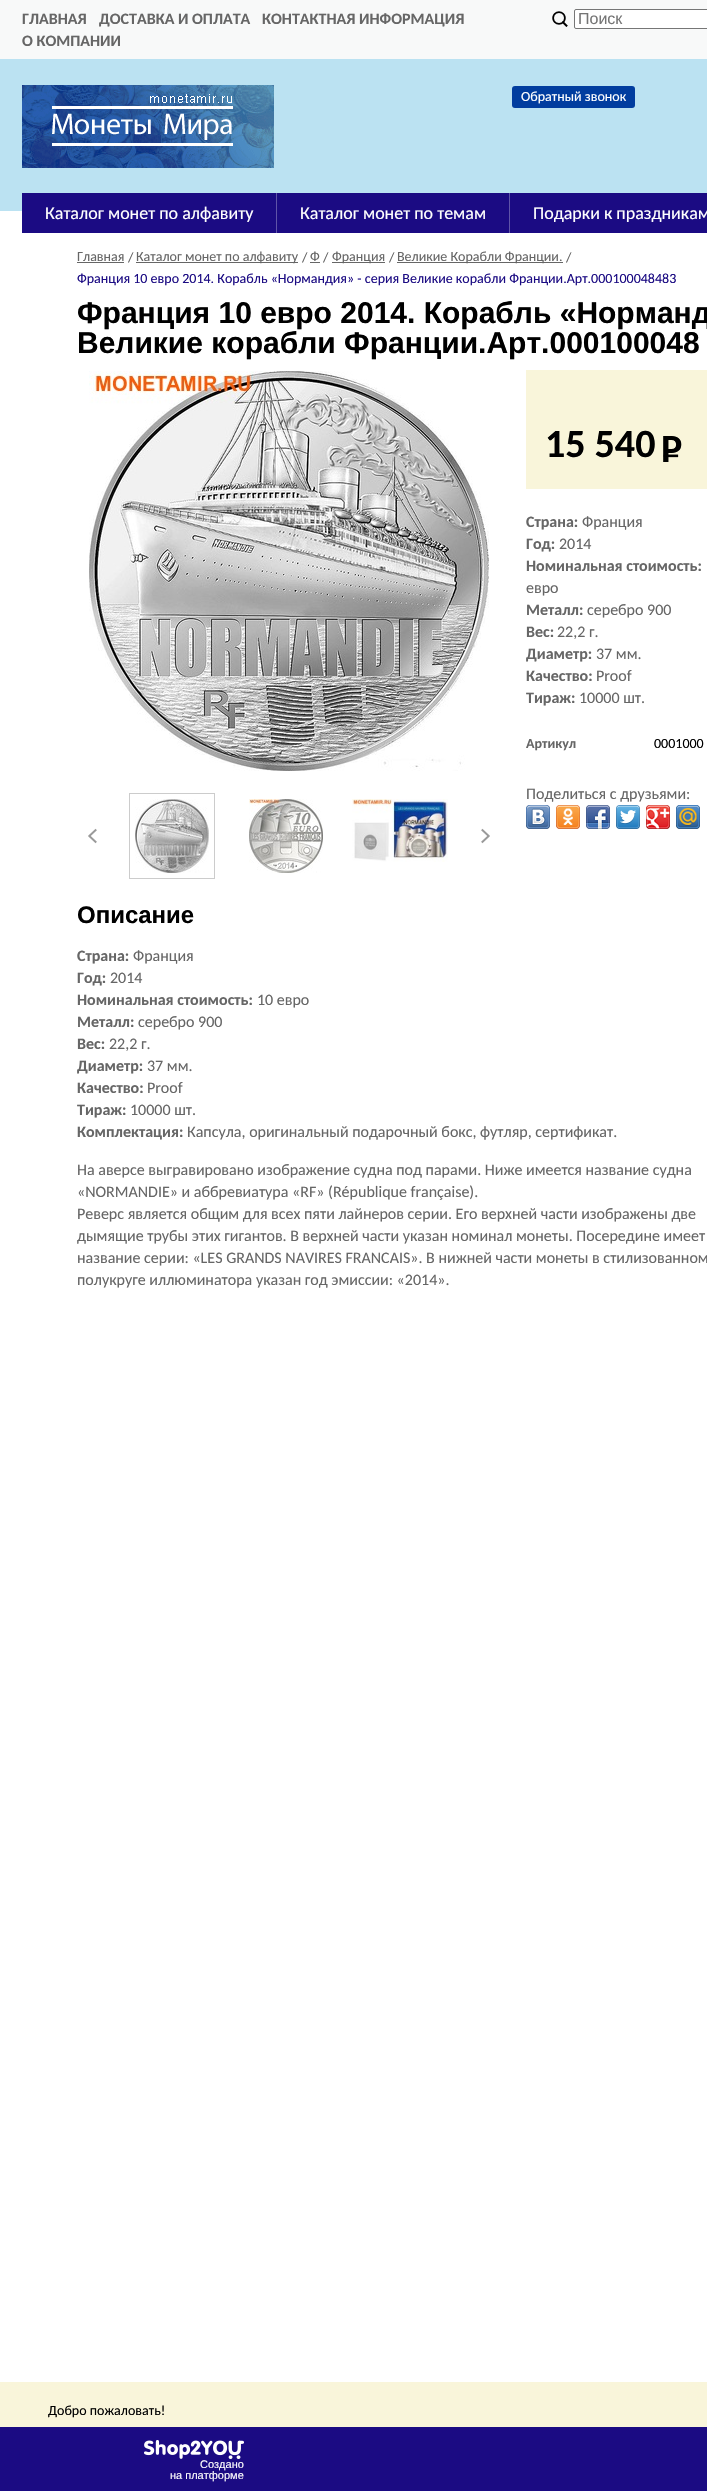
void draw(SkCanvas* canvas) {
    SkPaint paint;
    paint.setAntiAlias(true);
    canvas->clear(0xFFFFFFFF);
    paint.setColor(0xFFF8F9F9);
    canvas->drawRect(SkRect::MakeXYWH(0, 0, 707, 59), paint);
    SkFont font1(fontMgr->matchFamilyStyle("Carlito", SkFontStyle::Bold()), 16);
    font1.setSubpixel(true);
    paint.setColor(0xFF666666);
    canvas->drawString("ГЛАВНАЯ", 22, 24, font1, paint);
    canvas->drawString("ДОСТАВКА И ОПЛАТА", 99, 24, font1, paint);
    canvas->drawString("КОНТАКТНАЯ ИНФОРМАЦИЯ", 262, 24, font1, paint);
    canvas->drawString("О КОМПАНИИ", 22, 46, font1, paint);
    canvas->drawImageRect(SkImages::DeferredFromEncodedData(SkData::MakeFromFileName("img1.png")), SkRect::MakeXYWH(552, 11, 16, 16), SkSamplingOptions());
    paint.setColor(0xFFFFFFFF);
    canvas->drawRoundRect(SkRect::MakeXYWH(574.5f, 9.5f, 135, 19), 1.5f, 1.5f, paint);
    paint.setStyle(SkPaint::kStroke_Style);
    paint.setStrokeWidth(1);
    paint.setColor(0xFF767676);
    canvas->drawRoundRect(SkRect::MakeXYWH(574.5f, 9.5f, 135, 19), 1.5f, 1.5f, paint);
    SkFont font2(fontMgr->matchFamilyStyle("Liberation Sans", SkFontStyle::Normal()), 16);
    font2.setSubpixel(true);
    paint.setStyle(SkPaint::kFill_Style);
    paint.setColor(0xFF757575);
    canvas->drawString("Поиск", 578, 24, font2, paint);
    paint.setColor(0xFFBBE2F2);
    canvas->drawRect(SkRect::MakeXYWH(0, 59, 707, 152), paint);
    canvas->drawImageRect(SkImages::DeferredFromEncodedData(SkData::MakeFromFileName("img2.png")), SkRect::MakeXYWH(22, 85, 252, 83), SkSamplingOptions());
    paint.setColor(0xFF013D9F);
    canvas->drawRoundRect(SkRect::MakeXYWH(512, 86, 123, 22), 3, 3, paint);
    SkFont font3(fontMgr->matchFamilyStyle("Carlito", SkFontStyle::Normal()), 14);
    font3.setSubpixel(true);
    paint.setColor(0xFFFFFFFF);
    canvas->drawString("Обратный звонок", 521, 101, font3, paint);
    paint.setColor(0xFF1B0B83);
    canvas->drawRect(SkRect::MakeXYWH(22, 193, 685, 40), paint);
    paint.setColor(0xFF5F54A8);
    canvas->drawRect(SkRect::MakeXYWH(276, 193, 1, 40), paint);
    SkFont font4(fontMgr->matchFamilyStyle("Carlito", SkFontStyle::Normal()), 18);
    font4.setSubpixel(true);
    paint.setColor(0xFFFFFFFF);
    canvas->drawString("Каталог монет по алфавиту", 45, 219, font4, paint);
    paint.setColor(0xFF5F54A8);
    canvas->drawRect(SkRect::MakeXYWH(509, 193, 1, 40), paint);
    paint.setColor(0xFFFFFFFF);
    canvas->drawString("Каталог монет по темам", 300, 219, font4, paint);
    canvas->drawString("Подарки к праздникам", 533, 219, font4, paint);
    paint.setColor(0xFF666666);
    canvas->drawString("Главная", 77, 261, font3, paint);
    canvas->drawRect(SkRect::MakeXYWH(77, 262, 47, 1), paint);
    canvas->drawString("/", 128, 262, font3, paint);
    canvas->drawRect(SkRect::MakeXYWH(136, 262, 162, 1), paint);
    canvas->drawString("Каталог монет по алфавиту", 136, 261, font3, paint);
    canvas->drawString("/", 302, 262, font3, paint);
    canvas->drawString("Ф", 310, 261, font3, paint);
    canvas->drawRect(SkRect::MakeXYWH(310, 262, 10, 1), paint);
    canvas->drawString("/", 323, 262, font3, paint);
    canvas->drawRect(SkRect::MakeXYWH(332, 262, 53, 1), paint);
    canvas->drawString("Франция", 332, 261, font3, paint);
    canvas->drawString("/", 389, 262, font3, paint);
    canvas->drawRect(SkRect::MakeXYWH(397, 262, 166, 1), paint);
    canvas->drawString("Великие Корабли Франции.", 397, 261, font3, paint);
    canvas->drawString("/", 566, 262, font3, paint);
    paint.setColor(0xFF1B0B83);
    canvas->drawString("Франция 10 евро 2014. Корабль «Нормандия» - серия Великие корабли Франции.Арт.000100048483", 77, 283, font3, paint);
    SkFont font5(fontMgr->matchFamilyStyle("Liberation Sans", SkFontStyle::Bold()), 30);
    font5.setSubpixel(true);
    paint.setColor(0xFF000000);
    canvas->drawString("Франция 10 евро 2014. Корабль «Норманд", 77, 323, font5, paint);
    canvas->drawString("Великие корабли Франции.Арт.000100048", 77, 353, font5, paint);
    canvas->drawImageRect(SkImages::DeferredFromEncodedData(SkData::MakeFromFileName("img3.png")), SkRect::MakeXYWH(89, 371, 400, 400), SkSamplingOptions());
    canvas->drawImageRect(SkImages::DeferredFromEncodedData(SkData::MakeFromFileName("img4.png")), SkRect::MakeXYWH(88, 828, 9, 16), SkSamplingOptions());
    paint.setStyle(SkPaint::kStroke_Style);
    paint.setColor(0xFFCCCCCC);
    canvas->drawRect(SkRect::MakeXYWH(129.5f, 793.5f, 85, 85), paint);
    canvas->drawImageRect(SkImages::DeferredFromEncodedData(SkData::MakeFromFileName("img5.png")), SkRect::MakeXYWH(135, 799, 74, 74), SkSamplingOptions());
    canvas->drawImageRect(SkImages::DeferredFromEncodedData(SkData::MakeFromFileName("img6.png")), SkRect::MakeXYWH(249, 799, 74, 74), SkSamplingOptions());
    canvas->drawImageRect(SkImages::DeferredFromEncodedData(SkData::MakeFromFileName("img7.png")), SkRect::MakeXYWH(352, 799, 96, 63), SkSamplingOptions());
    canvas->drawImageRect(SkImages::DeferredFromEncodedData(SkData::MakeFromFileName("img8.png")), SkRect::MakeXYWH(481, 828, 9, 16), SkSamplingOptions());
    paint.setStyle(SkPaint::kFill_Style);
    paint.setColor(0xFFF9F5DA);
    canvas->drawRect(SkRect::MakeXYWH(526, 370, 181, 119), paint);
    SkFont font6(fontMgr->matchFamilyStyle("Carlito", SkFontStyle::Bold()), 40);
    font6.setSubpixel(true);
    paint.setColor(0xFF000000);
    canvas->drawString("15 540", 545, 457, font6, paint);
    SkFont font7(fontMgr->matchFamilyStyle("Carlito", SkFontStyle::Normal()), 40);
    font7.setSubpixel(true);
    canvas->drawString("–", 661, 467, font7, paint);
    canvas->drawString("P", 661, 462, font6, paint);
    paint.setColor(0xFF666666);
    canvas->drawString("Страна:", 526, 527, font1, paint);
    SkFont font8(fontMgr->matchFamilyStyle("Carlito", SkFontStyle::Normal()), 16);
    font8.setSubpixel(true);
    canvas->drawString("Франция", 582, 527, font8, paint);
    canvas->drawString("Год:", 526, 549, font1, paint);
    canvas->drawString("2014", 559, 549, font8, paint);
    canvas->drawString("Номинальная стоимость:", 526, 571, font1, paint);
    canvas->drawString("евро", 526, 593, font8, paint);
    canvas->drawString("Металл:", 526, 615, font1, paint);
    canvas->drawString("серебро 900", 587, 615, font8, paint);
    canvas->drawString("Вес:", 526, 637, font1, paint);
    canvas->drawString("22,2 г.", 557, 637, font8, paint);
    canvas->drawString("Диаметр:", 526, 659, font1, paint);
    canvas->drawString("37 мм.", 596, 659, font8, paint);
    canvas->drawString("Качество:", 526, 681, font1, paint);
    canvas->drawString("Proof", 596, 681, font8, paint);
    canvas->drawString("Тираж:", 526, 703, font1, paint);
    canvas->drawString("10000 шт.", 579, 703, font8, paint);
    SkFont font9(fontMgr->matchFamilyStyle("Carlito", SkFontStyle::Bold()), 14);
    font9.setSubpixel(true);
    canvas->drawString("Артикул", 526, 748, font9, paint);
    paint.setColor(0xFF000000);
    canvas->drawString("0001000", 654, 748, font3, paint);
    paint.setColor(0xFF666666);
    canvas->drawString("Поделиться с друзьями:", 526, 799, font8, paint);
    canvas->drawImageRect(SkImages::DeferredFromEncodedData(SkData::MakeFromFileName("img9.png")), SkRect::MakeXYWH(526, 805, 24, 24), SkSamplingOptions());
    canvas->drawImageRect(SkImages::DeferredFromEncodedData(SkData::MakeFromFileName("img10.png")), SkRect::MakeXYWH(556, 805, 24, 24), SkSamplingOptions());
    canvas->drawImageRect(SkImages::DeferredFromEncodedData(SkData::MakeFromFileName("img11.png")), SkRect::MakeXYWH(586, 805, 24, 24), SkSamplingOptions());
    canvas->drawImageRect(SkImages::DeferredFromEncodedData(SkData::MakeFromFileName("img12.png")), SkRect::MakeXYWH(616, 805, 24, 24), SkSamplingOptions());
    canvas->drawImageRect(SkImages::DeferredFromEncodedData(SkData::MakeFromFileName("img13.png")), SkRect::MakeXYWH(646, 805, 24, 24), SkSamplingOptions());
    canvas->drawImageRect(SkImages::DeferredFromEncodedData(SkData::MakeFromFileName("img14.png")), SkRect::MakeXYWH(676, 805, 24, 24), SkSamplingOptions());
    SkFont font10(fontMgr->matchFamilyStyle("Liberation Sans", SkFontStyle::Bold()), 24);
    font10.setSubpixel(true);
    paint.setColor(0xFF000000);
    canvas->drawString("Описание", 77, 923, font10, paint);
    paint.setColor(0xFF666666);
    canvas->drawString("Страна:", 77, 961, font1, paint);
    canvas->drawString("Франция", 133, 961, font8, paint);
    canvas->drawString("Год:", 77, 983, font1, paint);
    canvas->drawString("2014", 110, 983, font8, paint);
    canvas->drawString("Номинальная стоимость:", 77, 1005, font1, paint);
    canvas->drawString("10 евро", 257, 1005, font8, paint);
    canvas->drawString("Металл:", 77, 1027, font1, paint);
    canvas->drawString("серебро 900", 138, 1027, font8, paint);
    canvas->drawString("Вес:", 77, 1049, font1, paint);
    canvas->drawString("22,2 г.", 109, 1049, font8, paint);
    canvas->drawString("Диаметр:", 77, 1071, font1, paint);
    canvas->drawString("37 мм.", 147, 1071, font8, paint);
    canvas->drawString("Качество:", 77, 1093, font1, paint);
    canvas->drawString("Proof", 147, 1093, font8, paint);
    canvas->drawString("Тираж:", 77, 1115, font1, paint);
    canvas->drawString("10000 шт.", 130, 1115, font8, paint);
    canvas->drawString("Комплектация:", 77, 1137, font1, paint);
    canvas->drawString("Капсула, оригинальный подарочный бокс, футляр, сертификат.", 187, 1137, font8, paint);
    canvas->drawString("На аверсе выгравировано изображение судна под парами. Ниже имеется название судна", 77, 1175, font8, paint);
    canvas->drawString("«NORMANDIE» и аббревиатура «RF» (République française).", 77, 1197, font8, paint);
    canvas->drawString("Реверс является общим для всех пяти лайнеров серии. Его верхней части изображены две", 77, 1219, font8, paint);
    canvas->drawString("дымящие трубы этих гигантов. В верхней части указан номинал монеты. Посередине имеет", 77, 1241, font8, paint);
    canvas->drawString("название серии: «LES GRANDS NAVIRES FRANCAIS». В нижней части монеты в стилизованном", 77, 1263, font8, paint);
    canvas->drawString("полукруге иллюминатора указан год эмиссии: «2014».", 77, 1285, font8, paint);
    paint.setColor(0xFFF9F5DA);
    canvas->drawRect(SkRect::MakeXYWH(0, 2382, 707, 45), paint);
    paint.setColor(0xFF000000);
    canvas->drawString("Добро пожаловать!", 48, 2415, font3, paint);
    paint.setColor(0xFF1B0B83);
    canvas->drawRect(SkRect::MakeXYWH(0, 2427, 707, 64), paint);
    canvas->drawImageRect(SkImages::DeferredFromEncodedData(SkData::MakeFromFileName("img15.png")), SkRect::MakeXYWH(144, 2440, 100, 19), SkSamplingOptions());
    SkFont font11(fontMgr->matchFamilyStyle("Liberation Sans", SkFontStyle::Normal()), 11);
    font11.setSubpixel(true);
    paint.setColor(0xFFFFFFFF);
    canvas->drawString("Создано", 200, 2468, font11, paint);
    canvas->drawString("на платформе", 170, 2479, font11, paint);
}
